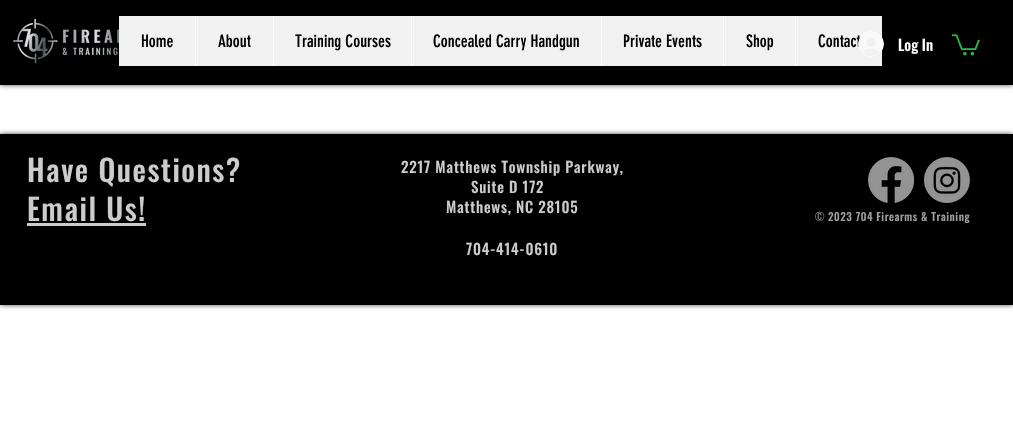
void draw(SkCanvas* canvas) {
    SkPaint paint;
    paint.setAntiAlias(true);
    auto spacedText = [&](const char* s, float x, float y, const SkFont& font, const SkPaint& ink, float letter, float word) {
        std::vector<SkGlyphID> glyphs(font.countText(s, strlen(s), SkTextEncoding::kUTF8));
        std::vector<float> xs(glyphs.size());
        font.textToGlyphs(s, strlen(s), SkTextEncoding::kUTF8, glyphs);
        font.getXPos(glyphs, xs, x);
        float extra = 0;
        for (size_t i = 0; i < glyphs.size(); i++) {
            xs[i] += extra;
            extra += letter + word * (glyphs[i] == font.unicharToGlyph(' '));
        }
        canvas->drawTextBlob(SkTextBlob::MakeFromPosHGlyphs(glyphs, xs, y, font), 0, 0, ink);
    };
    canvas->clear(0xFFFFFFFF);
    paint.setColor(0xB3000000);
    paint.setMaskFilter(SkMaskFilter::MakeBlur(kNormal_SkBlurStyle, 2.5f));
    canvas->drawRect(SkRect::MakeXYWH(0, 0, 1013, 85), paint);
    paint.setMaskFilter(nullptr);
    paint.setColor(0xFF000000);
    canvas->drawRect(SkRect::MakeXYWH(0, 0, 1013, 85), paint);
    canvas->drawImageRect(SkImages::DeferredFromEncodedData(SkData::MakeFromFileName("img1.png")), SkRect::MakeXYWH(13, 18, 106, 46), SkSamplingOptions());
    paint.setColor(0xFFF1F1F1);
    canvas->drawRect(SkRect::MakeXYWH(119, 16, 763, 50), paint);
    SkFont font1(fontMgr->matchFamilyStyle("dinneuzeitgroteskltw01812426", SkFontStyle::Normal()), 17);
    font1.setSubpixel(true);
    paint.setColor(0xFF000000);
    canvas->drawString("Home", 141, 47, font1, paint);
    paint.setColor(0xFFFFFFFF);
    canvas->drawRect(SkRect::MakeXYWH(195, 16, 1, 50), paint);
    paint.setColor(0xFF000000);
    canvas->drawString("About", 218, 47, font1, paint);
    paint.setColor(0xFFFFFFFF);
    canvas->drawRect(SkRect::MakeXYWH(273, 16, 1, 50), paint);
    paint.setColor(0xFF000000);
    canvas->drawString("Training Courses", 295, 47, font1, paint);
    paint.setColor(0xFFFFFFFF);
    canvas->drawRect(SkRect::MakeXYWH(411, 16, 1, 50), paint);
    paint.setColor(0xFF000000);
    canvas->drawString("Concealed Carry Handgun", 433, 47, font1, paint);
    paint.setColor(0xFFFFFFFF);
    canvas->drawRect(SkRect::MakeXYWH(601, 16, 1, 50), paint);
    paint.setColor(0xFF000000);
    canvas->drawString("Private Events", 623, 47, font1, paint);
    paint.setColor(0xFFFFFFFF);
    canvas->drawRect(SkRect::MakeXYWH(723, 16, 1, 50), paint);
    paint.setColor(0xFF000000);
    canvas->drawString("Shop", 746, 47, font1, paint);
    paint.setColor(0xFFFFFFFF);
    canvas->drawRect(SkRect::MakeXYWH(795, 16, 1, 50), paint);
    paint.setColor(0xFF000000);
    canvas->drawString("Contact", 818, 47, font1, paint);
    canvas->drawImageRect(SkImages::DeferredFromEncodedData(SkData::MakeFromFileName("img2.png")), SkRect::MakeXYWH(858, 31, 26, 26), SkSamplingOptions());
    SkFont font2(fontMgr->matchFamilyStyle("Oswald", SkFontStyle(500, SkFontStyle::kNormal_Width, SkFontStyle::kUpright_Slant)), 15);
    font2.setSubpixel(true);
    paint.setColor(0xFFFFFFFF);
    canvas->drawString("Log In", 898, 51, font2, paint);
    canvas->drawImageRect(SkImages::DeferredFromEncodedData(SkData::MakeFromFileName("img3.png")), SkRect::MakeXYWH(952, 34, 28, 22), SkSamplingOptions());
    paint.setColor(0xB3000000);
    paint.setMaskFilter(SkMaskFilter::MakeBlur(kNormal_SkBlurStyle, 2.5f));
    canvas->drawRect(SkRect::MakeXYWH(0, 134, 1013, 171), paint);
    paint.setMaskFilter(nullptr);
    paint.setColor(0xFF000000);
    canvas->drawRect(SkRect::MakeXYWH(0, 134, 1013, 171), paint);
    SkFont font3(fontMgr->matchFamilyStyle("Oswald", SkFontStyle(500, SkFontStyle::kNormal_Width, SkFontStyle::kUpright_Slant)), 30);
    font3.setSubpixel(true);
    paint.setColor(0xFFCCCCCC);
    spacedText("Have Questions?", 27, 182, font3, paint, 1.5f, 0);
    spacedText("Email Us!", 27, 221, font3, paint, 1.5f, 0);
    canvas->drawRect(SkRect::MakeXYWH(27, 223, 119, 3), paint);
    spacedText("2217 Matthews Township Parkway,", 401, 173, font2, paint, 0.75f, 0);
    spacedText("Suite D 172", 471, 193, font2, paint, 0.75f, 0);
    spacedText("Matthews, NC 28105", 446, 213, font2, paint, 0.75f, 0);
    spacedText("704-414-0610", 466, 255, font2, paint, 0.75f, 0);
    canvas->drawImageRect(SkImages::DeferredFromEncodedData(SkData::MakeFromFileName("img4.png")), SkRect::MakeXYWH(868, 157, 46, 46), SkSamplingOptions());
    canvas->drawImageRect(SkImages::DeferredFromEncodedData(SkData::MakeFromFileName("img5.png")), SkRect::MakeXYWH(924, 157, 46, 46), SkSamplingOptions());
    SkFont font4(fontMgr->matchFamilyStyle("Oswald", SkFontStyle(300, SkFontStyle::kNormal_Width, SkFontStyle::kUpright_Slant)), 11);
    font4.setSubpixel(true);
    paint.setColor(0xFFA0A09F);
    spacedText("©", 815, 221, font4, paint, 0.55f, 0);
    SkFont font5(fontMgr->matchFamilyStyle("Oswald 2", SkFontStyle(500, SkFontStyle::kNormal_Width, SkFontStyle::kUpright_Slant)), 11);
    font5.setSubpixel(true);
    spacedText("2023 704 Firearms & Training", 828, 221, font5, paint, 0.55f, 0);
}
